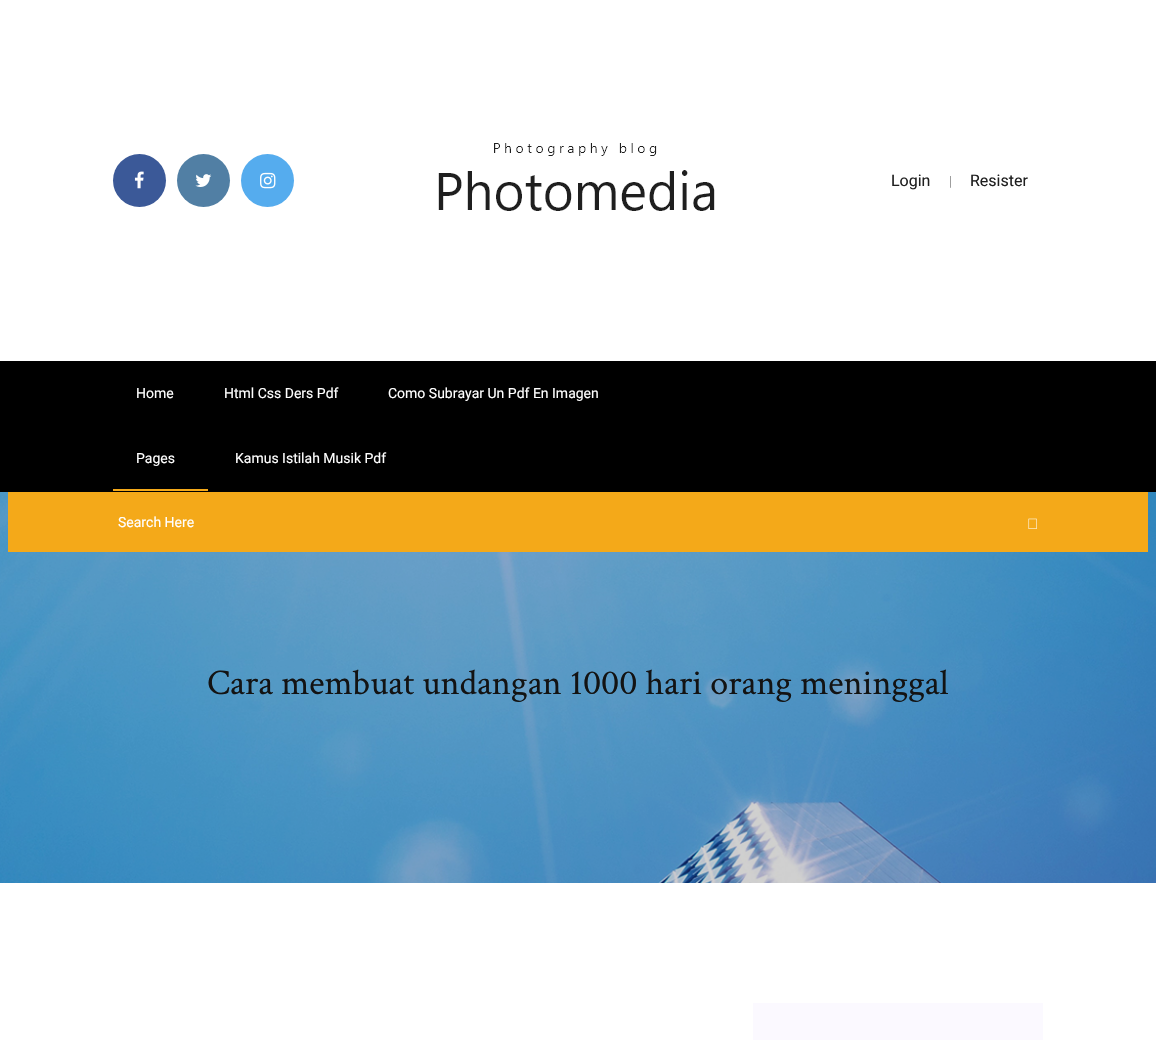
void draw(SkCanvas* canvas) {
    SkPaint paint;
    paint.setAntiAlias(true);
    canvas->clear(0xFFFFFFFF);
    paint.setColor(0xFF3B5998);
    canvas->drawCircle(139.5f, 180.5f, 26.5f, paint);
    canvas->drawImageRect(SkImages::DeferredFromEncodedData(SkData::MakeFromFileName("img1.png")), SkRect::MakeXYWH(134, 171, 10, 18), SkSamplingOptions());
    paint.setColor(0xFF517FA4);
    canvas->drawCircle(203.5f, 180.5f, 26.5f, paint);
    canvas->drawImageRect(SkImages::DeferredFromEncodedData(SkData::MakeFromFileName("img2.png")), SkRect::MakeXYWH(195, 174, 17, 13), SkSamplingOptions());
    paint.setColor(0xFF55ACEE);
    canvas->drawCircle(267.5f, 180.5f, 26.5f, paint);
    canvas->drawImageRect(SkImages::DeferredFromEncodedData(SkData::MakeFromFileName("img3.png")), SkRect::MakeXYWH(260, 172, 16, 17), SkSamplingOptions());
    canvas->drawImageRect(SkImages::DeferredFromEncodedData(SkData::MakeFromFileName("img4.png")), SkRect::MakeXYWH(438, 143, 277, 68), SkSamplingOptions());
    SkFont font1(fontMgr->matchFamilyStyle("Roboto", SkFontStyle::Normal()), 16);
    font1.setSubpixel(true);
    paint.setColor(0xFF1F1F1F);
    canvas->drawString("Login", 891, 186, font1, paint);
    SkFont font2(fontMgr->matchFamilyStyle("Roboto", SkFontStyle(300, SkFontStyle::kNormal_Width, SkFontStyle::kUpright_Slant)), 14);
    font2.setSubpixel(true);
    paint.setColor(0xFF808080);
    canvas->drawString("|", 949, 186, font2, paint);
    paint.setColor(0xFF1F1F1F);
    canvas->drawString("Resister", 970, 186, font1, paint);
    paint.setColor(0xFF000000);
    canvas->drawRect(SkRect::MakeXYWH(0, 361, 1156, 131), paint);
    SkFont font3(fontMgr->matchFamilyStyle("Roboto", SkFontStyle::Normal()), 14);
    font3.setSubpixel(true);
    paint.setColor(0xFFFFFFFF);
    canvas->drawString("Home", 136, 398, font3, paint);
    canvas->drawString("Html Css Ders Pdf", 224, 398, font3, paint);
    canvas->drawString("Como Subrayar Un Pdf En Imagen", 388, 398, font3, paint);
    canvas->drawString("Pages", 136, 463, font3, paint);
    paint.setColor(0xFFF4A919);
    canvas->drawRect(SkRect::MakeXYWH(113, 489, 95, 2), paint);
    paint.setColor(0xFFFFFFFF);
    canvas->drawString("Kamus Istilah Musik Pdf", 235, 463, font3, paint);
    canvas->drawImageRect(SkImages::DeferredFromEncodedData(SkData::MakeFromFileName("img6.png")), SkRect::MakeXYWH(0, 492, 1156, 391), SkSamplingOptions());
    paint.setColor(0xFFF4A919);
    canvas->drawRect(SkRect::MakeXYWH(8, 492, 1140, 60), paint);
    paint.setColor(0xFFFFFFFF);
    canvas->drawString("Search Here", 118, 527, font3, paint);
    canvas->drawImageRect(SkImages::DeferredFromEncodedData(SkData::MakeFromFileName("img5.png")), SkRect::MakeXYWH(1028, 518, 9, 11), SkSamplingOptions());
    SkFont font4(fontMgr->matchFamilyStyle("Crimson Text", SkFontStyle::Normal()), 36);
    font4.setSubpixel(true);
    paint.setColor(0xFF131313);
    canvas->drawString("Cara membuat undangan 1000 hari orang meninggal", 207, 694, font4, paint);
    paint.setColor(0xFFFBF9FF);
    canvas->drawRect(SkRect::MakeXYWH(753, 1003, 290, 37), paint);
}
